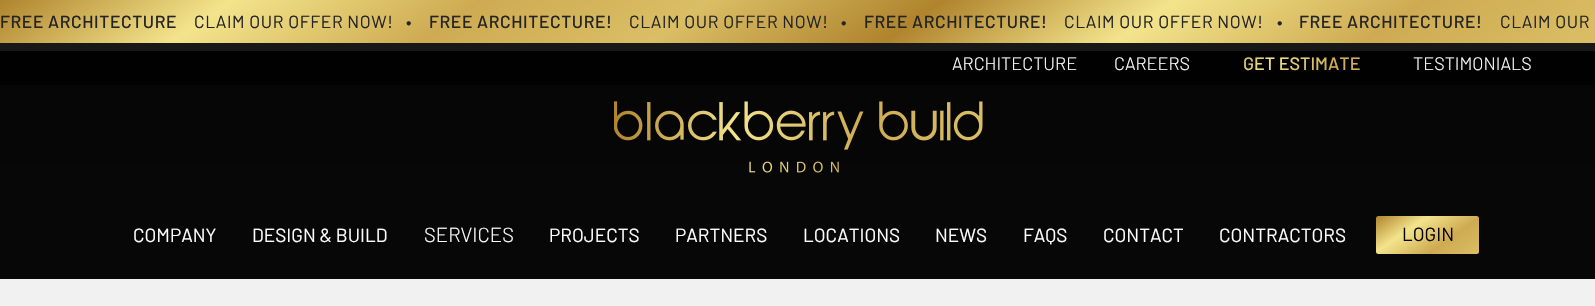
void draw(SkCanvas* canvas) {
    SkPaint paint;
    paint.setAntiAlias(true);
    auto spacedText = [&](const char* s, float x, float y, const SkFont& font, const SkPaint& ink, float letter, float word) {
        std::vector<SkGlyphID> glyphs(font.countText(s, strlen(s), SkTextEncoding::kUTF8));
        std::vector<float> xs(glyphs.size());
        font.textToGlyphs(s, strlen(s), SkTextEncoding::kUTF8, glyphs);
        font.getXPos(glyphs, xs, x);
        float extra = 0;
        for (size_t i = 0; i < glyphs.size(); i++) {
            xs[i] += extra;
            extra += letter + word * (glyphs[i] == font.unicharToGlyph(' '));
        }
        canvas->drawTextBlob(SkTextBlob::MakeFromPosHGlyphs(glyphs, xs, y, font), 0, 0, ink);
    };
    canvas->clear(0xFFF1F1F1);
    paint.setColor(0xFF181818);
    canvas->drawRect(SkRect::MakeXYWH(0, 43, 1595, 8), paint);
    {
        const SkColor colors[] = {0xFFAF842D, 0xFFF3E48C, 0xFFCEAB52, 0xFFDABE65, 0xFFAF842D, 0xFFF3E48C, 0xFFCEAB52, 0xFFDABE65};
        const float stops[] = {0, 0.14f, 0.29f, 0.43f, 0.57f, 0.71f, 0.86f, 1};
        const SkPoint ends[] = {{525, -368}, {1070, 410}};
        paint.setShader(SkGradientShader::MakeLinear(ends, colors, stops, 8, SkTileMode::kClamp));
        paint.setAlpha(255);
    }
    canvas->drawRect(SkRect::MakeXYWH(0, 0, 1595, 43), paint);
    SkFont font1(fontMgr->matchFamilyStyle("Barlow", SkFontStyle(500, SkFontStyle::kNormal_Width, SkFontStyle::kUpright_Slant)), 17.5f);
    font1.setSubpixel(true);
    paint.setShader(nullptr);
    paint.setColor(0xFF242424);
    spacedText("FREE ARCHITECTURE", 0, 28, font1, paint, 0.6f, 0);
    SkFont font2(fontMgr->matchFamilyStyle("Barlow", SkFontStyle::Normal()), 17.5f);
    font2.setSubpixel(true);
    spacedText("CLAIM OUR OFFER NOW!", 194, 28, font2, paint, 0.6f, 0);
    spacedText("•", 406, 28, font1, paint, 0.6f, 0);
    spacedText("FREE ARCHITECTURE!", 429, 28, font1, paint, 0.6f, 0);
    spacedText("CLAIM OUR OFFER NOW!", 629, 28, font2, paint, 0.6f, 0);
    spacedText("•", 841, 28, font1, paint, 0.6f, 0);
    spacedText("FREE ARCHITECTURE!", 864, 28, font1, paint, 0.6f, 0);
    spacedText("CLAIM OUR OFFER NOW!", 1064, 28, font2, paint, 0.6f, 0);
    spacedText("•", 1277, 28, font1, paint, 0.6f, 0);
    spacedText("FREE ARCHITECTURE!", 1299, 28, font1, paint, 0.6f, 0);
    spacedText("CLAIM OUR", 1500, 28, font2, paint, 0.6f, 0);
    {
        const SkColor colors[] = {0xFF010101, 0xFF010101};
        const float stops[] = {0, 1};
        const SkPoint ends[] = {{798, 279}, {798, 51}};
        paint.setShader(SkGradientShader::MakeLinear(ends, colors, stops, 2, SkTileMode::kClamp));
        paint.setAlpha(255);
    }
    canvas->drawRect(SkRect::MakeXYWH(0, 51, 1595, 34), paint);
    SkFont font3(fontMgr->matchFamilyStyle("Barlow", SkFontStyle(300, SkFontStyle::kNormal_Width, SkFontStyle::kUpright_Slant)), 18);
    font3.setSubpixel(true);
    paint.setShader(nullptr);
    paint.setColor(0xFFFFFFFF);
    canvas->drawString("ARCHITECTURE", 952, 70, font3, paint);
    canvas->drawString("CAREERS", 1114, 70, font3, paint);
    SkFont font4(fontMgr->matchFamilyStyle("Barlow", SkFontStyle(500, SkFontStyle::kNormal_Width, SkFontStyle::kUpright_Slant)), 18);
    font4.setSubpixel(true);
    {
        const SkColor colors[] = {0xFFAF842D, 0xFFF3E48C, 0xFFCEAB52, 0xFFDABE65};
        const float stops[] = {0, 0.33f, 0.67f, 1};
        const SkPoint ends[] = {{1252, 14}, {1351, 113}};
        paint.setShader(SkGradientShader::MakeLinear(ends, colors, stops, 4, SkTileMode::kClamp));
        paint.setAlpha(255);
    }
    canvas->drawString("GET ESTIMATE", 1243, 70, font4, paint);
    paint.setShader(nullptr);
    paint.setColor(0xFFFFFFFF);
    canvas->drawString("TESTIMONIALS", 1413, 70, font3, paint);
    {
        const SkColor colors[] = {0xFF070707, 0xFF060606};
        const float stops[] = {0, 1};
        const SkPoint ends[] = {{798, 279}, {798, 51}};
        paint.setShader(SkGradientShader::MakeLinear(ends, colors, stops, 2, SkTileMode::kClamp));
        paint.setAlpha(255);
    }
    canvas->drawRect(SkRect::MakeXYWH(0, 85, 1595, 194), paint);
    canvas->drawImageRect(SkImages::DeferredFromEncodedData(SkData::MakeFromFileName("img1.png")), SkRect::MakeXYWH(614, 101, 369, 72), SkSamplingOptions());
    SkFont font5(fontMgr->matchFamilyStyle("Barlow", SkFontStyle::Normal()), 19);
    font5.setSubpixel(true);
    paint.setShader(nullptr);
    paint.setColor(0xFFFFFFFF);
    canvas->drawString("COMPANY", 133, 242, font5, paint);
    canvas->drawString("DESIGN & BUILD", 252, 242, font5, paint);
    SkFont font6(fontMgr->matchFamilyStyle("Barlow", SkFontStyle(300, SkFontStyle::kNormal_Width, SkFontStyle::kUpright_Slant)), 20.25f);
    font6.setSubpixel(true);
    canvas->drawString("SERVICES", 424, 242, font6, paint);
    canvas->drawString("PROJECTS", 549, 242, font5, paint);
    canvas->drawString("PARTNERS", 675, 242, font5, paint);
    canvas->drawString("LOCATIONS", 803, 242, font5, paint);
    canvas->drawString("NEWS", 935, 242, font5, paint);
    canvas->drawString("FAQS", 1023, 242, font5, paint);
    canvas->drawString("CONTACT", 1103, 242, font5, paint);
    canvas->drawString("CONTRACTORS", 1219, 242, font5, paint);
    {
        const SkColor colors[] = {0xFFAF842D, 0xFFF3E48C, 0xFFCEAB52, 0xFFDABE65};
        const float stops[] = {0, 0.33f, 0.67f, 1};
        const SkPoint ends[] = {{1402, 198}, {1453, 272}};
        paint.setShader(SkGradientShader::MakeLinear(ends, colors, stops, 4, SkTileMode::kClamp));
        paint.setAlpha(255);
    }
    canvas->drawRoundRect(SkRect::MakeXYWH(1376, 216, 103, 38), 2.5f, 2.5f, paint);
    paint.setShader(nullptr);
    paint.setColor(0xFF000000);
    canvas->drawString("LOGIN", 1402, 241, font5, paint);
}
